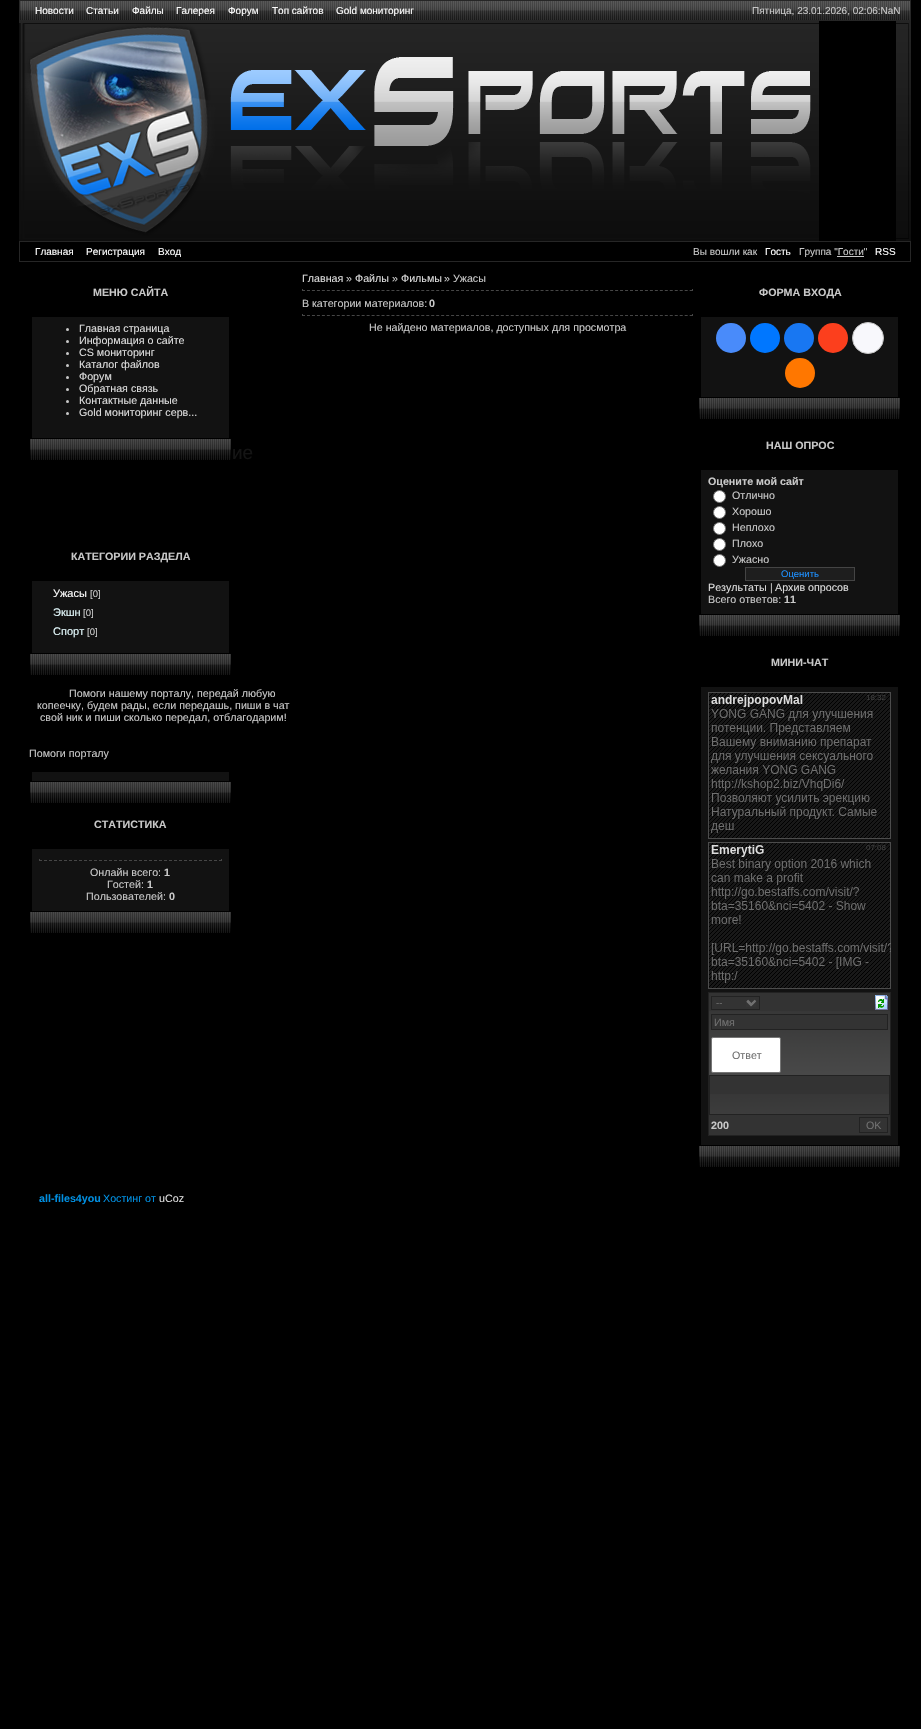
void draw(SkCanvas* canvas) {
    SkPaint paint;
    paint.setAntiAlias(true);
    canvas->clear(0xFF000000);
    canvas->drawImageRect(SkImages::DeferredFromEncodedData(SkData::MakeFromFileName("img1.png")), SkRect::MakeXYWH(20, 1, 890, 19), SkSamplingOptions());
    paint.setStyle(SkPaint::kStroke_Style);
    paint.setStrokeWidth(1);
    paint.setColor(0xFF262626);
    canvas->drawRect(SkRect::MakeXYWH(19.5f, 0.5f, 891, 20), paint);
    SkFont font1(fontMgr->matchFamilyStyle("Liberation Sans", SkFontStyle::Normal()), 10);
    font1.setSubpixel(true);
    paint.setStyle(SkPaint::kFill_Style);
    paint.setColor(0xFFFFFFFF);
    canvas->drawString("Новости", 35, 14, font1, paint);
    canvas->drawString("Статьи", 86, 14, font1, paint);
    canvas->drawString("Файлы", 132, 14, font1, paint);
    canvas->drawString("Галерея", 176, 14, font1, paint);
    canvas->drawString("Форум", 228, 14, font1, paint);
    canvas->drawString("Топ сайтов", 272, 14, font1, paint);
    canvas->drawString("Gold мониторинг", 336, 14, font1, paint);
    paint.setColor(0xFFC8C8C8);
    canvas->drawString("Пятница, 23.01.2026, 02:06:NaN", 752, 14, font1, paint);
    canvas->drawImageRect(SkImages::DeferredFromEncodedData(SkData::MakeFromFileName("img2.png")), SkRect::MakeXYWH(19, 21, 800, 220), SkSamplingOptions());
    canvas->drawImageRect(SkImages::DeferredFromEncodedData(SkData::MakeFromFileName("img3.png")), SkRect::MakeXYWH(896, 21, 15, 220), SkSamplingOptions());
    paint.setStyle(SkPaint::kStroke_Style);
    paint.setColor(0xFF262626);
    canvas->drawRect(SkRect::MakeXYWH(19.5f, 241.5f, 891, 20), paint);
    paint.setStyle(SkPaint::kFill_Style);
    paint.setColor(0xFFFFFFFF);
    canvas->drawString("Главная", 35, 255, font1, paint);
    canvas->drawString("Регистрация", 86, 255, font1, paint);
    canvas->drawString("Вход", 158, 255, font1, paint);
    paint.setColor(0xFFC8C8C8);
    canvas->drawString("Вы вошли как", 693, 255, font1, paint);
    paint.setColor(0xFFFFFFFF);
    canvas->drawString("Гость", 765, 255, font1, paint);
    paint.setColor(0xFFC8C8C8);
    canvas->drawString("Группа \"Гости\"", 799, 255, font1, paint);
    paint.setColor(0xFFFFFFFF);
    canvas->drawString("RSS", 875, 255, font1, paint);
    paint.setColor(0xFFC8C8C8);
    canvas->drawRect(SkRect::MakeXYWH(837, 256, 27, 1), paint);
    SkFont font2(fontMgr->matchFamilyStyle("Liberation Sans", SkFontStyle::Bold()), 10.7f);
    font2.setSubpixel(true);
    canvas->drawString("МЕНЮ САЙТА", 93, 296, font2, paint);
    paint.setColor(0xFF121212);
    canvas->drawRect(SkRect::MakeXYWH(32, 317, 197, 112), paint);
    paint.setColor(0xFFC8C8C8);
    canvas->drawCircle(67.5f, 329.5f, 1.5f, paint);
    SkFont font3(fontMgr->matchFamilyStyle("Liberation Sans", SkFontStyle::Normal()), 10.7f);
    font3.setSubpixel(true);
    paint.setColor(0xFFDEDEDE);
    canvas->drawString("Главная страница", 79, 332, font3, paint);
    paint.setColor(0xFFC8C8C8);
    canvas->drawCircle(67.5f, 341.5f, 1.5f, paint);
    paint.setColor(0xFFDEDEDE);
    canvas->drawString("Информация о сайте", 79, 344, font3, paint);
    paint.setColor(0xFFC8C8C8);
    canvas->drawCircle(67.5f, 353.5f, 1.5f, paint);
    paint.setColor(0xFFDEDEDE);
    canvas->drawString("CS мониторинг", 79, 356, font3, paint);
    paint.setColor(0xFFC8C8C8);
    canvas->drawCircle(67.5f, 365.5f, 1.5f, paint);
    paint.setColor(0xFFDEDEDE);
    canvas->drawString("Каталог файлов", 79, 368, font3, paint);
    paint.setColor(0xFFC8C8C8);
    canvas->drawCircle(67.5f, 377.5f, 1.5f, paint);
    paint.setColor(0xFFDEDEDE);
    canvas->drawString("Форум", 79, 380, font3, paint);
    paint.setColor(0xFFC8C8C8);
    canvas->drawCircle(67.5f, 389.5f, 1.5f, paint);
    paint.setColor(0xFFDEDEDE);
    canvas->drawString("Обратная связь", 79, 392, font3, paint);
    paint.setColor(0xFFC8C8C8);
    canvas->drawCircle(67.5f, 401.5f, 1.5f, paint);
    paint.setColor(0xFFDEDEDE);
    canvas->drawString("Контактные данные", 79, 404, font3, paint);
    paint.setColor(0xFFC8C8C8);
    canvas->drawCircle(67.5f, 413.5f, 1.5f, paint);
    paint.setColor(0xFFDEDEDE);
    canvas->drawString("Gold мониторинг серв...", 79, 416, font3, paint);
    canvas->drawImageRect(SkImages::DeferredFromEncodedData(SkData::MakeFromFileName("img4.png")), SkRect::MakeXYWH(30, 429, 201, 31), SkSamplingOptions());
    paint.setColor(0xFFC8C8C8);
    canvas->drawString("КАТЕГОРИИ РАЗДЕЛА", 71, 560, font2, paint);
    paint.setColor(0xFF121212);
    canvas->drawRect(SkRect::MakeXYWH(32, 581, 197, 63), paint);
    SkFont font4(fontMgr->matchFamilyStyle("Liberation Sans", SkFontStyle::Normal()), 11);
    font4.setSubpixel(true);
    paint.setColor(0xFFFFFFFF);
    canvas->drawString("Ужасы", 53, 597, font4, paint);
    SkFont font5(fontMgr->matchFamilyStyle("Liberation Sans", SkFontStyle::Normal()), 9.5f);
    font5.setSubpixel(true);
    paint.setColor(0xFFC8C8C8);
    canvas->drawString("[0]", 90, 597, font5, paint);
    paint.setColor(0xFFE4FAFD);
    canvas->drawString("Экшн", 53, 616, font4, paint);
    paint.setColor(0xFFC8C8C8);
    canvas->drawString("[0]", 83, 616, font5, paint);
    paint.setColor(0xFFE4FAFD);
    canvas->drawString("Спорт", 53, 635, font4, paint);
    paint.setColor(0xFFC8C8C8);
    canvas->drawString("[0]", 87, 635, font5, paint);
    canvas->drawImageRect(SkImages::DeferredFromEncodedData(SkData::MakeFromFileName("img4.png")), SkRect::MakeXYWH(30, 644, 201, 31), SkSamplingOptions());
    canvas->drawString("Помоги нашему порталу, передай любую", 69, 697, font3, paint);
    canvas->drawString("копеечку, будем рады, если передашь, пиши в чат", 37, 709, font3, paint);
    canvas->drawString("свой ник и пиши сколько передал, отблагодарим!", 40, 721, font3, paint);
    canvas->drawString("Помоги порталу", 29, 757, font3, paint);
    canvas->drawImageRect(SkImages::DeferredFromEncodedData(SkData::MakeFromFileName("img4.png")), SkRect::MakeXYWH(30, 772, 201, 31), SkSamplingOptions());
    canvas->drawString("СТАТИСТИКА", 94, 828, font2, paint);
    paint.setColor(0xFF121212);
    canvas->drawRect(SkRect::MakeXYWH(32, 849, 197, 53), paint);
    paint.setColor(0xFF464646);
    canvas->drawRect(SkRect::MakeXYWH(221, 859, 1, 2), paint);
    paint.setStyle(SkPaint::kStroke_Style);
    paint.setPathEffect(SkDashPathEffect::Make({{3, 2}}, 0));
    canvas->drawPath(SkPathBuilder().moveTo(39, 860.5f).lineTo(222, 860.5f).detach(), paint);
    paint.setPathEffect(nullptr);
    paint.setStyle(SkPaint::kFill_Style);
    canvas->drawRect(SkRect::MakeXYWH(39, 859, 1, 2), paint);
    paint.setColor(0xFFC8C8C8);
    canvas->drawString("Онлайн всего:", 90, 876, font3, paint);
    canvas->drawString("1", 164, 876, font2, paint);
    canvas->drawString("Гостей:", 107, 888, font3, paint);
    canvas->drawString("1", 147, 888, font2, paint);
    canvas->drawString("Пользователей:", 86, 900, font3, paint);
    canvas->drawString("0", 169, 900, font2, paint);
    canvas->drawImageRect(SkImages::DeferredFromEncodedData(SkData::MakeFromFileName("img4.png")), SkRect::MakeXYWH(30, 902, 201, 31), SkSamplingOptions());
    paint.setColor(0xFFDEDEDE);
    canvas->drawString("Главная", 302, 282, font3, paint);
    paint.setColor(0xFFC8C8C8);
    canvas->drawString("»", 346, 282, font3, paint);
    paint.setColor(0xFFDEDEDE);
    canvas->drawString("Файлы", 355, 282, font3, paint);
    paint.setColor(0xFFC8C8C8);
    canvas->drawString("»", 392, 282, font3, paint);
    paint.setColor(0xFFDEDEDE);
    canvas->drawString("Фильмы", 401, 282, font3, paint);
    paint.setColor(0xFFC8C8C8);
    canvas->drawString("» Ужасы", 444, 282, font3, paint);
    paint.setColor(0xFF464646);
    canvas->drawRect(SkRect::MakeXYWH(692, 289, 1, 2), paint);
    paint.setStyle(SkPaint::kStroke_Style);
    paint.setPathEffect(SkDashPathEffect::Make({{3, 1.97f}}, 0));
    canvas->drawPath(SkPathBuilder().moveTo(302, 290.5f).lineTo(693, 290.5f).detach(), paint);
    paint.setPathEffect(nullptr);
    paint.setStyle(SkPaint::kFill_Style);
    canvas->drawRect(SkRect::MakeXYWH(302, 289, 1, 2), paint);
    paint.setColor(0xFFC8C8C8);
    canvas->drawString("В категории материалов:", 302, 307, font3, paint);
    canvas->drawString("0", 429, 307, font2, paint);
    paint.setColor(0xFF464646);
    canvas->drawRect(SkRect::MakeXYWH(692, 314, 1, 2), paint);
    paint.setStyle(SkPaint::kStroke_Style);
    paint.setPathEffect(SkDashPathEffect::Make({{3, 1.97f}}, 0));
    canvas->drawPath(SkPathBuilder().moveTo(302, 315.5f).lineTo(693, 315.5f).detach(), paint);
    paint.setPathEffect(nullptr);
    paint.setStyle(SkPaint::kFill_Style);
    canvas->drawRect(SkRect::MakeXYWH(302, 314, 1, 2), paint);
    paint.setColor(0xFFC8C8C8);
    canvas->drawString("Не найдено материалов, доступных для просмотра", 369, 331, font3, paint);
    canvas->drawString("ФОРМА ВХОДА", 759, 296, font2, paint);
    paint.setColor(0xFF121212);
    canvas->drawRect(SkRect::MakeXYWH(701, 317, 197, 71), paint);
    paint.setColor(0xFF498BFA);
    canvas->drawCircle(731, 338, 15, paint);
    paint.setColor(0xFF0077FF);
    canvas->drawCircle(765, 338, 15, paint);
    paint.setColor(0xFF1877F2);
    canvas->drawCircle(799, 338, 15, paint);
    paint.setColor(0xFFFC3F1D);
    canvas->drawCircle(833, 338, 15, paint);
    paint.setColor(0xFFF8F8FC);
    canvas->drawCircle(868, 338, 15.5f, paint);
    paint.setStyle(SkPaint::kStroke_Style);
    paint.setColor(0xFFC4C4C4);
    canvas->drawCircle(868, 338, 15.5f, paint);
    paint.setStyle(SkPaint::kFill_Style);
    paint.setColor(0xFFFF7700);
    canvas->drawCircle(800, 373, 15, paint);
    canvas->drawImageRect(SkImages::DeferredFromEncodedData(SkData::MakeFromFileName("img4.png")), SkRect::MakeXYWH(699, 388, 201, 31), SkSamplingOptions());
    paint.setColor(0xFFC8C8C8);
    canvas->drawString("НАШ ОПРОС", 766, 449, font2, paint);
    paint.setColor(0xFF121212);
    canvas->drawRect(SkRect::MakeXYWH(701, 470, 197, 135), paint);
    paint.setColor(0xFFC8C8C8);
    canvas->drawString("Оцените мой сайт", 708, 485, font2, paint);
    paint.setColor(0xFFFFFFFF);
    canvas->drawCircle(719.5f, 496.5f, 6, paint);
    paint.setStyle(SkPaint::kStroke_Style);
    paint.setColor(0xFF767676);
    canvas->drawCircle(719.5f, 496.5f, 6, paint);
    paint.setStyle(SkPaint::kFill_Style);
    paint.setColor(0xFFC8C8C8);
    canvas->drawString("Отлично", 732, 499, font3, paint);
    paint.setColor(0xFFFFFFFF);
    canvas->drawCircle(719.5f, 512.5f, 6, paint);
    paint.setStyle(SkPaint::kStroke_Style);
    paint.setColor(0xFF767676);
    canvas->drawCircle(719.5f, 512.5f, 6, paint);
    paint.setStyle(SkPaint::kFill_Style);
    paint.setColor(0xFFC8C8C8);
    canvas->drawString("Хорошо", 732, 515, font3, paint);
    paint.setColor(0xFFFFFFFF);
    canvas->drawCircle(719.5f, 528.5f, 6, paint);
    paint.setStyle(SkPaint::kStroke_Style);
    paint.setColor(0xFF767676);
    canvas->drawCircle(719.5f, 528.5f, 6, paint);
    paint.setStyle(SkPaint::kFill_Style);
    paint.setColor(0xFFC8C8C8);
    canvas->drawString("Неплохо", 732, 531, font3, paint);
    paint.setColor(0xFFFFFFFF);
    canvas->drawCircle(719.5f, 544.5f, 6, paint);
    paint.setStyle(SkPaint::kStroke_Style);
    paint.setColor(0xFF767676);
    canvas->drawCircle(719.5f, 544.5f, 6, paint);
    paint.setStyle(SkPaint::kFill_Style);
    paint.setColor(0xFFC8C8C8);
    canvas->drawString("Плохо", 732, 547, font3, paint);
    paint.setColor(0xFFFFFFFF);
    canvas->drawCircle(719.5f, 560.5f, 6, paint);
    paint.setStyle(SkPaint::kStroke_Style);
    paint.setColor(0xFF767676);
    canvas->drawCircle(719.5f, 560.5f, 6, paint);
    paint.setStyle(SkPaint::kFill_Style);
    paint.setColor(0xFFC8C8C8);
    canvas->drawString("Ужасно", 732, 563, font3, paint);
    paint.setColor(0xFF1E1E1E);
    canvas->drawRect(SkRect::MakeXYWH(745.5f, 567.5f, 109, 13), paint);
    paint.setStyle(SkPaint::kStroke_Style);
    paint.setColor(0xFF444444);
    canvas->drawRect(SkRect::MakeXYWH(745.5f, 567.5f, 109, 13), paint);
    paint.setStyle(SkPaint::kFill_Style);
    paint.setColor(0xFF1E90FF);
    canvas->drawString("Оценить", 781, 577, font5, paint);
    paint.setColor(0xFFDEDEDE);
    canvas->drawString("Результаты", 708, 591, font3, paint);
    paint.setColor(0xFFC8C8C8);
    canvas->drawString("|", 770, 591, font3, paint);
    paint.setColor(0xFFDEDEDE);
    canvas->drawString("Архив опросов", 775, 591, font3, paint);
    paint.setColor(0xFFC8C8C8);
    canvas->drawString("Всего ответов:", 708, 603, font3, paint);
    canvas->drawString("11", 784, 603, font2, paint);
    canvas->drawImageRect(SkImages::DeferredFromEncodedData(SkData::MakeFromFileName("img4.png")), SkRect::MakeXYWH(699, 605, 201, 31), SkSamplingOptions());
    canvas->drawString("МИНИ-ЧАТ", 771, 666, font2, paint);
    paint.setColor(0xFF121212);
    canvas->drawRect(SkRect::MakeXYWH(701, 687, 197, 449), paint);
    canvas->drawImageRect(SkImages::DeferredFromEncodedData(SkData::MakeFromFileName("img5.png")), SkRect::MakeXYWH(708, 692, 183, 297), SkSamplingOptions());
    paint.setColor(0xFF333333);
    canvas->drawRect(SkRect::MakeXYWH(709, 993, 181, 142), paint);
    canvas->drawImageRect(SkImages::DeferredFromEncodedData(SkData::MakeFromFileName("img6.png")), SkRect::MakeXYWH(709, 1011, 181, 64), SkSamplingOptions());
    paint.setStyle(SkPaint::kStroke_Style);
    paint.setColor(0xFF222222);
    canvas->drawRect(SkRect::MakeXYWH(708.5f, 992.5f, 182, 143), paint);
    canvas->drawImageRect(SkImages::DeferredFromEncodedData(SkData::MakeFromFileName("img7.png")), SkRect::MakeXYWH(746, 1000, 10, 7), SkSamplingOptions());
    canvas->drawRect(SkRect::MakeXYWH(711.5f, 996.5f, 48, 13), paint);
    paint.setStrokeWidth(2);
    paint.setColor(0xFF707070);
    canvas->drawPath(SkPathBuilder().moveTo(747.5f, 1000.5f).lineTo(751.5f, 1004.5f).lineTo(755.5f, 1000.5f).detach(), paint);
    paint.setStyle(SkPaint::kFill_Style);
    canvas->drawString("--", 716, 1006, font5, paint);
    canvas->drawImageRect(SkImages::DeferredFromEncodedData(SkData::MakeFromFileName("img8.png")), SkRect::MakeXYWH(875, 995, 13, 15), SkSamplingOptions());
    paint.setColor(0xFF333333);
    canvas->drawRect(SkRect::MakeXYWH(711.5f, 1014.5f, 176, 15), paint);
    paint.setStyle(SkPaint::kStroke_Style);
    paint.setStrokeWidth(1);
    paint.setColor(0xFF222222);
    canvas->drawRect(SkRect::MakeXYWH(711.5f, 1014.5f, 176, 15), paint);
    paint.setStyle(SkPaint::kFill_Style);
    paint.setColor(0xFF707070);
    canvas->drawString("Имя", 714, 1026, font3, paint);
    paint.setColor(0xFFFFFFFF);
    canvas->drawRoundRect(SkRect::MakeXYWH(711.5f, 1037.5f, 69, 35), 1.5f, 1.5f, paint);
    paint.setStyle(SkPaint::kStroke_Style);
    paint.setColor(0xFF767676);
    canvas->drawRoundRect(SkRect::MakeXYWH(711.5f, 1037.5f, 69, 35), 1.5f, 1.5f, paint);
    paint.setStyle(SkPaint::kFill_Style);
    paint.setColor(0xFF707070);
    canvas->drawString("Ответ", 732, 1059, font3, paint);
    canvas->drawImageRect(SkImages::DeferredFromEncodedData(SkData::MakeFromFileName("img9.png")), SkRect::MakeXYWH(710, 1094, 179, 20), SkSamplingOptions());
    paint.setStyle(SkPaint::kStroke_Style);
    paint.setColor(0xFF222222);
    canvas->drawRect(SkRect::MakeXYWH(709.5f, 1075.5f, 180, 39), paint);
    paint.setStyle(SkPaint::kFill_Style);
    paint.setColor(0xFFC8C8C8);
    canvas->drawString("200", 711, 1129, font2, paint);
    paint.setStyle(SkPaint::kStroke_Style);
    paint.setColor(0xFF222222);
    canvas->drawRect(SkRect::MakeXYWH(859.5f, 1117.5f, 28, 15), paint);
    paint.setStyle(SkPaint::kFill_Style);
    paint.setColor(0xFF707070);
    canvas->drawString("OK", 866, 1129, font3, paint);
    canvas->drawImageRect(SkImages::DeferredFromEncodedData(SkData::MakeFromFileName("img4.png")), SkRect::MakeXYWH(699, 1136, 201, 31), SkSamplingOptions());
    paint.setColor(0xFF018FE1);
    canvas->drawString("all-files4you", 39, 1202, font2, paint);
    canvas->drawString("Хостинг от", 103, 1202, font3, paint);
    paint.setColor(0xFFDEDEDE);
    canvas->drawString("uCoz", 159, 1202, font3, paint);
    SkFont font6(fontMgr->matchFamilyStyle("Liberation Sans", SkFontStyle::Normal()), 19);
    font6.setSubpixel(true);
    paint.setColor(0xFF141414);
    canvas->drawString("ие", 232, 459, font6, paint);
}
